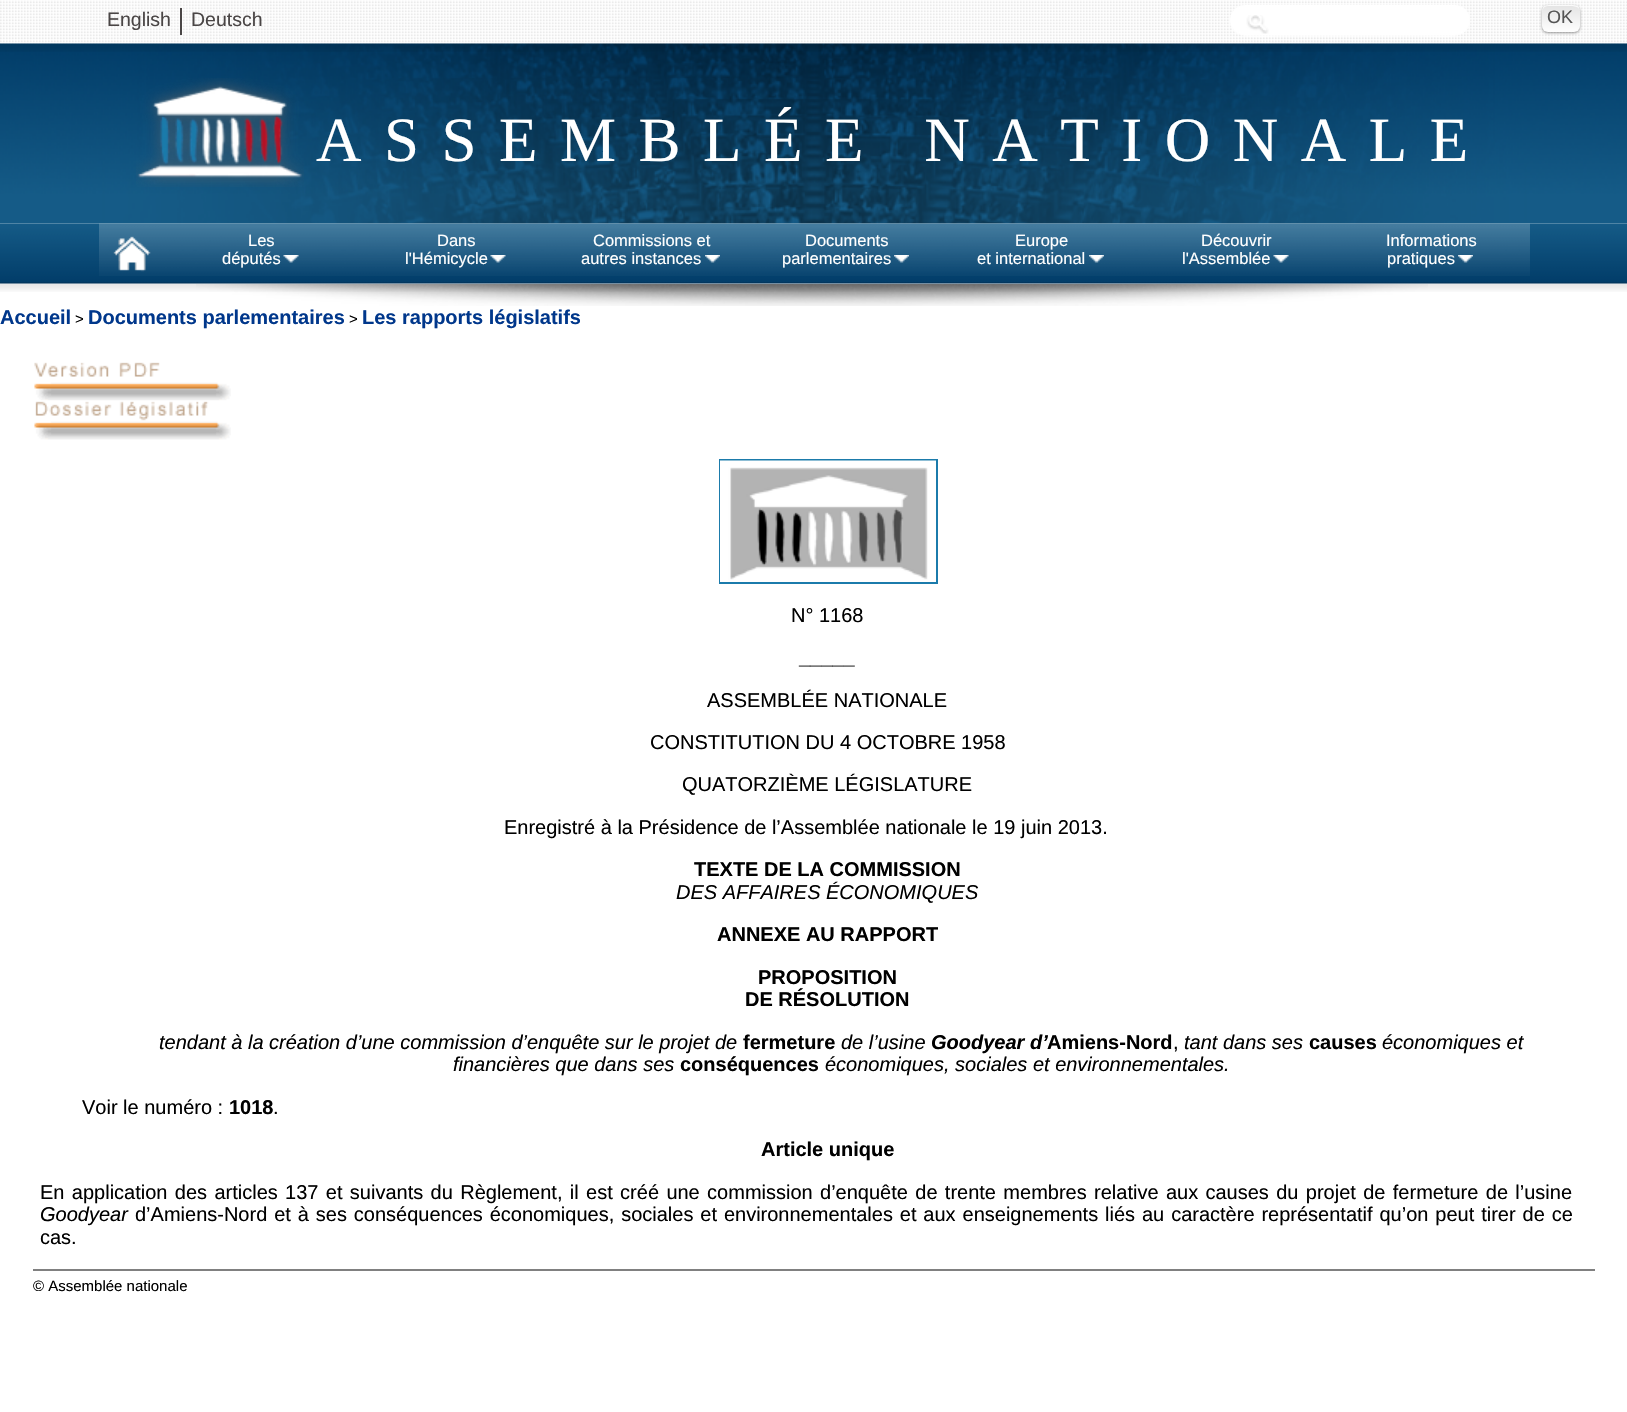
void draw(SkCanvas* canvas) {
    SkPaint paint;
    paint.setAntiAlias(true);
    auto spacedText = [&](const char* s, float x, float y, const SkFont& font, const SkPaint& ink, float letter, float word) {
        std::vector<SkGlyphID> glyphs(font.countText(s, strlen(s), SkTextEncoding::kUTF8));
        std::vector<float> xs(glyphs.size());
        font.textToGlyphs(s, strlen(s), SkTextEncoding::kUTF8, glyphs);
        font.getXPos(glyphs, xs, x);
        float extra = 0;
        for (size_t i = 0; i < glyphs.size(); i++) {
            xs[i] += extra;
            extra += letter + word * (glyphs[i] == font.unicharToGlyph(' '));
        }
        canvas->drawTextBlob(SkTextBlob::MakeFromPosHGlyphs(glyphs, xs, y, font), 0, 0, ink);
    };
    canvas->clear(0xFFFFFFFF);
    canvas->drawImageRect(SkImages::DeferredFromEncodedData(SkData::MakeFromFileName("img1.png")), SkRect::MakeXYWH(0, 0, 1627, 44), SkSamplingOptions());
    canvas->drawImageRect(SkImages::DeferredFromEncodedData(SkData::MakeFromFileName("img2.png")), SkRect::MakeXYWH(0, 43, 1627, 181), SkSamplingOptions());
    SkFont font1(fontMgr->matchFamilyStyle("Liberation Sans", SkFontStyle::Normal()), 19.5f);
    font1.setSubpixel(true);
    paint.setColor(0xFF4A4646);
    canvas->drawString("English", 107, 26, font1, paint);
    canvas->drawRect(SkRect::MakeXYWH(180, 8, 2, 27), paint);
    canvas->drawString("Deutsch", 191, 26, font1, paint);
    paint.setColor(0x80FFFFFF);
    paint.setMaskFilter(SkMaskFilter::MakeBlur(kNormal_SkBlurStyle, 1.5f));
    canvas->drawRoundRect(SkRect::MakeXYWH(1230, 5, 240, 30), 15, 15, paint);
    paint.setMaskFilter(nullptr);
    paint.setColor(0xB3FFFFFF);
    canvas->drawPath(SkPathBuilder().moveTo(1230, 20).cubicTo(1229, 44, 1271, 36, 1280, 36).lineTo(1420, 36).cubicTo(1429, 36, 1471, 44, 1470, 20).cubicTo(1470, 28, 1463, 34, 1455, 34).lineTo(1245, 34).cubicTo(1237, 34, 1230, 28, 1230, 20).close().detach(), paint);
    paint.setColor(0xFFFFFFFF);
    canvas->drawRoundRect(SkRect::MakeXYWH(1230, 5, 240, 30), 15, 15, paint);
    paint.setColor(0x66000000);
    paint.setMaskFilter(SkMaskFilter::MakeBlur(kNormal_SkBlurStyle, 1.5f));
    canvas->drawRoundRect(SkRect::MakeXYWH(1542, 6, 38, 27), 6, 6, paint);
    paint.setMaskFilter(nullptr);
    {
        const SkColor colors[] = {0xFFE3E3E3, 0xFFFFFFFF};
        const float stops[] = {0, 1};
        const SkPoint ends[] = {{1561, 4.5f}, {1561, 32}};
        paint.setShader(SkGradientShader::MakeLinear(ends, colors, stops, 2, SkTileMode::kClamp));
        paint.setAlpha(255);
    }
    canvas->drawRoundRect(SkRect::MakeXYWH(1542, 5, 38, 27), 6, 6, paint);
    paint.setShader(nullptr);
    paint.setColor(0xCCFFFFFF);
    canvas->drawPath(SkPathBuilder(SkPathFillType::kEvenOdd).moveTo(1548, 6).lineTo(1569, 6).cubicTo(1578.5f, 6, 1580, 8, 1580, 14).cubicTo(1580, 5.5f, 1578, 5, 1569.5f, 5).lineTo(1552.5f, 5).cubicTo(1544, 5, 1542, 5.5f, 1542, 14).cubicTo(1542, 10, 1543.5f, 6, 1548, 6).close().moveTo(1580, 25.5f).lineTo(1580, 27).close().moveTo(1542.5f, 28).lineTo(1542, 25).close().detach(), paint);
    SkFont font2(fontMgr->matchFamilyStyle("Liberation Sans", SkFontStyle::Normal()), 18);
    font2.setSubpixel(true);
    paint.setColor(0xFF555555);
    canvas->drawString("OK", 1547, 23, font2, paint);
    canvas->drawImageRect(SkImages::DeferredFromEncodedData(SkData::MakeFromFileName("img3.png")), SkRect::MakeXYWH(1246, 15, 23, 19), SkSamplingOptions());
    canvas->drawImageRect(SkImages::DeferredFromEncodedData(SkData::MakeFromFileName("img4.png")), SkRect::MakeXYWH(136, 78, 168, 109), SkSamplingOptions());
    SkFont font3(fontMgr->matchFamilyStyle("Liberation Serif", SkFontStyle::Normal()), 63);
    font3.setSubpixel(true);
    paint.setColor(0xFFFFFFFF);
    spacedText("ASSEMBLÉE NATIONALE", 316, 161, font3, paint, 22.5f, 0);
    canvas->drawImageRect(SkImages::DeferredFromEncodedData(SkData::MakeFromFileName("img15.png")), SkRect::MakeXYWH(0, 223, 1627, 61), SkSamplingOptions());
    canvas->drawImageRect(SkImages::DeferredFromEncodedData(SkData::MakeFromFileName("img5.png")), SkRect::MakeXYWH(99, 223, 1431, 53), SkSamplingOptions());
    canvas->drawImageRect(SkImages::DeferredFromEncodedData(SkData::MakeFromFileName("img6.png")), SkRect::MakeXYWH(113, 236, 38, 36), SkSamplingOptions());
    SkFont font4(fontMgr->matchFamilyStyle("Liberation Sans", SkFontStyle::Normal()), 16.5f);
    font4.setSubpixel(true);
    canvas->drawString("Les", 248, 246, font4, paint);
    canvas->drawString("députés", 222, 264, font4, paint);
    canvas->drawImageRect(SkImages::DeferredFromEncodedData(SkData::MakeFromFileName("img7.png")), SkRect::MakeXYWH(283, 255, 16, 8), SkSamplingOptions());
    canvas->drawString("Dans", 437, 246, font4, paint);
    canvas->drawString("l'Hémicycle", 405, 264, font4, paint);
    canvas->drawImageRect(SkImages::DeferredFromEncodedData(SkData::MakeFromFileName("img8.png")), SkRect::MakeXYWH(490, 255, 16, 8), SkSamplingOptions());
    canvas->drawString("Commissions et", 593, 246, font4, paint);
    canvas->drawString("autres instances", 581, 264, font4, paint);
    canvas->drawImageRect(SkImages::DeferredFromEncodedData(SkData::MakeFromFileName("img9.png")), SkRect::MakeXYWH(705, 255, 15, 8), SkSamplingOptions());
    canvas->drawString("Documents", 805, 246, font4, paint);
    canvas->drawString("parlementaires", 782, 264, font4, paint);
    canvas->drawImageRect(SkImages::DeferredFromEncodedData(SkData::MakeFromFileName("img10.png")), SkRect::MakeXYWH(894, 255, 15, 8), SkSamplingOptions());
    canvas->drawString("Europe", 1015, 246, font4, paint);
    canvas->drawString("et international", 977, 264, font4, paint);
    canvas->drawImageRect(SkImages::DeferredFromEncodedData(SkData::MakeFromFileName("img11.png")), SkRect::MakeXYWH(1089, 255, 15, 8), SkSamplingOptions());
    canvas->drawString("Découvrir", 1201, 246, font4, paint);
    canvas->drawString("l'Assemblée", 1182, 264, font4, paint);
    canvas->drawImageRect(SkImages::DeferredFromEncodedData(SkData::MakeFromFileName("img12.png")), SkRect::MakeXYWH(1273, 255, 16, 8), SkSamplingOptions());
    canvas->drawString("Informations", 1386, 246, font4, paint);
    canvas->drawString("pratiques", 1387, 264, font4, paint);
    canvas->drawImageRect(SkImages::DeferredFromEncodedData(SkData::MakeFromFileName("img13.png")), SkRect::MakeXYWH(1458, 255, 15, 8), SkSamplingOptions());
    canvas->drawImageRect(SkImages::DeferredFromEncodedData(SkData::MakeFromFileName("img14.png")), SkRect::MakeXYWH(0, 43, 1627, 9), SkSamplingOptions());
    canvas->drawImageRect(SkImages::DeferredFromEncodedData(SkData::MakeFromFileName("img17.png")), SkRect::MakeXYWH(196, 284, 1232, 22), SkSamplingOptions());
    canvas->drawImageRect(SkImages::DeferredFromEncodedData(SkData::MakeFromFileName("img16.png")), SkRect::MakeXYWH(0, 282, 1627, 10), SkSamplingOptions());
    SkFont font5(fontMgr->matchFamilyStyle("Liberation Sans", SkFontStyle::Bold()), 20);
    font5.setSubpixel(true);
    paint.setColor(0xFF00378B);
    canvas->drawString("Accueil", 0, 324, font5, paint);
    SkFont font6(fontMgr->matchFamilyStyle("Liberation Sans", SkFontStyle::Normal()), 15);
    font6.setSubpixel(true);
    paint.setColor(0xFF000000);
    canvas->drawString(">", 75, 324, font6, paint);
    paint.setColor(0xFF00378B);
    canvas->drawString("Documents parlementaires", 88, 324, font5, paint);
    paint.setColor(0xFF000000);
    canvas->drawString(">", 349, 324, font6, paint);
    paint.setColor(0xFF00378B);
    canvas->drawString("Les rapports législatifs", 362, 324, font5, paint);
    canvas->drawImageRect(SkImages::DeferredFromEncodedData(SkData::MakeFromFileName("img18.png")), SkRect::MakeXYWH(34, 362, 197, 39), SkSamplingOptions());
    canvas->drawImageRect(SkImages::DeferredFromEncodedData(SkData::MakeFromFileName("img19.png")), SkRect::MakeXYWH(34, 400, 197, 40), SkSamplingOptions());
    paint.setStyle(SkPaint::kStroke_Style);
    paint.setStrokeWidth(2);
    paint.setColor(0xFF1B7BAB);
    canvas->drawRect(SkRect::MakeXYWH(720, 460, 217, 123), paint);
    canvas->drawImageRect(SkImages::DeferredFromEncodedData(SkData::MakeFromFileName("img20.png")), SkRect::MakeXYWH(720, 460, 216, 122), SkSamplingOptions());
    SkFont font7(fontMgr->matchFamilyStyle("Liberation Sans", SkFontStyle::Normal()), 20);
    font7.setSubpixel(true);
    paint.setStyle(SkPaint::kFill_Style);
    paint.setColor(0xFF000000);
    canvas->drawString("N° 1168", 791, 622, font7, paint);
    canvas->drawString("_____", 799, 664, font5, paint);
    canvas->drawString("ASSEMBLÉE NATIONALE", 707, 707, font7, paint);
    canvas->drawString("CONSTITUTION DU 4 OCTOBRE 1958", 650, 749, font7, paint);
    canvas->drawString("QUATORZIÈME LÉGISLATURE", 682, 791, font7, paint);
    canvas->drawString("Enregistré à la Présidence de l’Assemblée nationale le 19 juin 2013.", 504, 834, font7, paint);
    canvas->drawString("TEXTE DE LA COMMISSION", 694, 876, font5, paint);
    SkFont font8(fontMgr->matchFamilyStyle("Liberation Sans", SkFontStyle::Italic()), 20);
    font8.setSubpixel(true);
    canvas->drawString("DES AFFAIRES ÉCONOMIQUES", 676, 899, font8, paint);
    canvas->drawString("ANNEXE AU RAPPORT", 717, 941, font5, paint);
    canvas->drawString("PROPOSITION", 758, 984, font5, paint);
    canvas->drawString("DE RÉSOLUTION", 745, 1006, font5, paint);
    canvas->drawString("tendant à la création d’une commission d’enquête sur le projet de", 159, 1049, font8, paint);
    canvas->drawString("fermeture", 743, 1049, font5, paint);
    canvas->drawString("de l’usine", 841, 1049, font8, paint);
    SkFont font9(fontMgr->matchFamilyStyle("Liberation Sans", SkFontStyle::BoldItalic()), 20);
    font9.setSubpixel(true);
    canvas->drawString("Goodyear d’", 931, 1049, font9, paint);
    canvas->drawString("Amiens-Nord", 1047, 1049, font5, paint);
    canvas->drawString(",", 1173, 1049, font7, paint);
    canvas->drawString("tant dans ses", 1184, 1049, font8, paint);
    canvas->drawString("causes", 1309, 1049, font5, paint);
    canvas->drawString("économiques et", 1382, 1049, font8, paint);
    canvas->drawString("financières que dans ses", 453, 1071, font8, paint);
    canvas->drawString("conséquences", 680, 1071, font5, paint);
    canvas->drawString("économiques, sociales et environnementales.", 825, 1071, font8, paint);
    canvas->drawString("Voir le numéro :", 82, 1114, font7, paint);
    canvas->drawString("1018", 229, 1114, font5, paint);
    canvas->drawString(".", 273, 1114, font7, paint);
    canvas->drawString("Article unique", 761, 1156, font5, paint);
    spacedText("En application des articles 137 et suivants du Règlement, il est créé une commission d’enquête de trente membres relative aux causes du projet de fermeture de l’usine", 40, 1199, font7, paint, 0, 1.8f);
    canvas->drawString("Goodyear", 40, 1221, font8, paint);
    spacedText("d’Amiens-Nord et à ses conséquences économiques, sociales et environnementales et aux enseignements liés au caractère représentatif qu’on peut tirer de ce", 135, 1221, font7, paint, 0, 1.35f);
    canvas->drawString("cas.", 40, 1244, font7, paint);
    paint.setColor(0xFF808080);
    canvas->drawRect(SkRect::MakeXYWH(33, 1269, 1562, 2), paint);
    paint.setColor(0xFF000000);
    canvas->drawString("© Assemblée nationale", 33, 1291, font6, paint);
}
